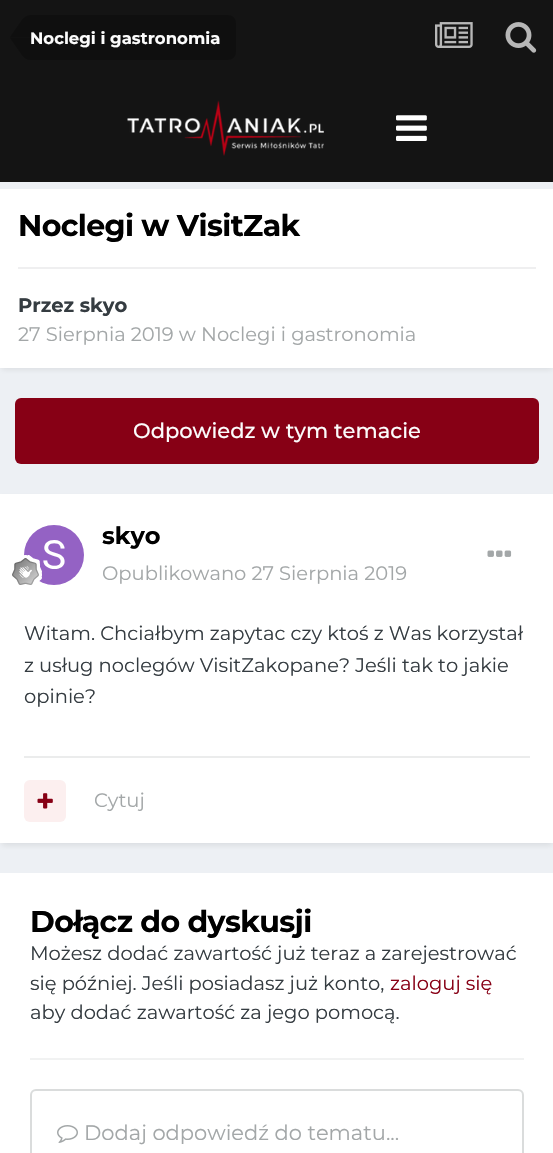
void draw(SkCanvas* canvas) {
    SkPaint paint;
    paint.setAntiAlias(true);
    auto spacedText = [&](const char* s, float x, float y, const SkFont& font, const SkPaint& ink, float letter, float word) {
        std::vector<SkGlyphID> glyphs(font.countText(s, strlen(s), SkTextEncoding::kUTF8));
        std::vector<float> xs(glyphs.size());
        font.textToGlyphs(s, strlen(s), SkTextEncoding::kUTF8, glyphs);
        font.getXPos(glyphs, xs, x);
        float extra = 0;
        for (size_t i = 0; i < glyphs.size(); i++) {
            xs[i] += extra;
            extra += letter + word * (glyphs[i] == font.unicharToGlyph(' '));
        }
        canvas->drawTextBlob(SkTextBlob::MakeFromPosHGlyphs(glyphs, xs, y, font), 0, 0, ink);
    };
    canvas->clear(0xFFEDF0F4);
    paint.setColor(0xFF141414);
    canvas->drawRect(SkRect::MakeXYWH(0, 0, 553, 182), paint);
    canvas->drawImageRect(SkImages::DeferredFromEncodedData(SkData::MakeFromFileName("img1.png")), SkRect::MakeXYWH(127, 100, 197, 56), SkSamplingOptions());
    canvas->drawImageRect(SkImages::DeferredFromEncodedData(SkData::MakeFromFileName("img2.png")), SkRect::MakeXYWH(396, 115, 31, 26), SkSamplingOptions());
    paint.setColor(0xFF0F0F0F);
    canvas->drawPath(SkPathBuilder().moveTo(30, 15).lineTo(228, 15).cubicTo(232.5f, 15, 236, 18.5f, 236, 23).lineTo(236, 52).cubicTo(236, 56.5f, 232.5f, 60, 228, 60).lineTo(30, 60).close().detach(), paint);
    canvas->drawPath(SkPathBuilder().moveTo(10.5f, 39).lineTo(10, 37.5f).lineTo(30, 37.5f).lineTo(30, 60).cubicTo(27, 60, 23.5f, 58, 21, 54).close().detach(), paint);
    canvas->drawPath(SkPathBuilder().moveTo(30, 15).lineTo(30, 37.5f).lineTo(10, 37.5f).lineTo(10.5f, 36).lineTo(21, 21).cubicTo(23.5f, 17, 27, 15, 30, 15).close().detach(), paint);
    SkFont font1(fontMgr->matchFamilyStyle("Montserrat", SkFontStyle::Bold()), 16.5f);
    font1.setSubpixel(true);
    paint.setColor(0xFFFCFCFC);
    canvas->drawString("Noclegi i gastronomia", 30, 44, font1, paint);
    canvas->drawImageRect(SkImages::DeferredFromEncodedData(SkData::MakeFromFileName("img3.png")), SkRect::MakeXYWH(435, 22, 38, 26), SkSamplingOptions());
    canvas->drawImageRect(SkImages::DeferredFromEncodedData(SkData::MakeFromFileName("img4.png")), SkRect::MakeXYWH(505, 22, 32, 31), SkSamplingOptions());
    paint.setColor(0x1A141414);
    paint.setMaskFilter(SkMaskFilter::MakeBlur(kNormal_SkBlurStyle, 3));
    canvas->drawRect(SkRect::MakeXYWH(2, 194, 550, 175), paint);
    paint.setMaskFilter(nullptr);
    paint.setColor(0xFFFFFFFF);
    canvas->drawRect(SkRect::MakeXYWH(0, 189, 553, 179), paint);
    SkFont font2(fontMgr->matchFamilyStyle("Montserrat", SkFontStyle::Bold()), 30);
    font2.setSubpixel(true);
    paint.setColor(0xFF000000);
    spacedText("Noclegi w VisitZak", 18, 236, font2, paint, -0.6f, 0);
    paint.setColor(0xFFEFEFF0);
    canvas->drawRect(SkRect::MakeXYWH(18, 267, 518, 2), paint);
    SkFont font3(fontMgr->matchFamilyStyle("Montserrat", SkFontStyle::Bold()), 19.5f);
    font3.setSubpixel(true);
    paint.setColor(0xFF353C41);
    canvas->drawString("Przez skyo", 18, 312, font3, paint);
    SkFont font4(fontMgr->matchFamilyStyle("Montserrat", SkFontStyle::Normal()), 19.5f);
    font4.setSubpixel(true);
    paint.setColor(0xFFA3A7A8);
    canvas->drawString("27 Sierpnia 2019 w Noclegi i gastronomia", 18, 341, font4, paint);
    paint.setColor(0xFF870015);
    canvas->drawRoundRect(SkRect::MakeXYWH(15, 398, 524, 66), 6, 6, paint);
    SkFont font5(fontMgr->matchFamilyStyle("Montserrat", SkFontStyle(500, SkFontStyle::kNormal_Width, SkFontStyle::kUpright_Slant)), 21);
    font5.setSubpixel(true);
    paint.setColor(0xFFFCFCFC);
    canvas->drawString("Odpowiedz w tym temacie", 133, 438, font5, paint);
    paint.setColor(0x1A141414);
    paint.setMaskFilter(SkMaskFilter::MakeBlur(kNormal_SkBlurStyle, 3));
    canvas->drawRect(SkRect::MakeXYWH(2, 498, 550, 347), paint);
    paint.setMaskFilter(nullptr);
    paint.setColor(0xFFFFFFFF);
    canvas->drawRect(SkRect::MakeXYWH(0, 494, 553, 349), paint);
    canvas->drawImageRect(SkImages::DeferredFromEncodedData(SkData::MakeFromFileName("img5.png")), SkRect::MakeXYWH(24, 525, 60, 60), SkSamplingOptions());
    canvas->drawImageRect(SkImages::DeferredFromEncodedData(SkData::MakeFromFileName("img6.png")), SkRect::MakeXYWH(12, 555, 30, 30), SkSamplingOptions());
    SkFont font6(fontMgr->matchFamilyStyle("Montserrat", SkFontStyle::Bold()), 24);
    font6.setSubpixel(true);
    paint.setColor(0xFF000000);
    canvas->drawString("skyo", 102, 544, font6, paint);
    paint.setColor(0xFFA3A7A8);
    canvas->drawString("Opublikowano 27 Sierpnia 2019", 102, 580, font4, paint);
    canvas->drawImageRect(SkImages::DeferredFromEncodedData(SkData::MakeFromFileName("img7.png")), SkRect::MakeXYWH(487, 550, 25, 7), SkSamplingOptions());
    paint.setColor(0xFF353C41);
    canvas->drawString("Witam. Chciałbym zapytac czy ktoś z Was korzystał", 24, 640, font4, paint);
    canvas->drawString("z usług noclegów VisitZakopane? Jeśli tak to jakie", 24, 672, font4, paint);
    canvas->drawString("opinie?", 24, 703, font4, paint);
    paint.setColor(0xFFEBECEC);
    canvas->drawRect(SkRect::MakeXYWH(24, 756, 506, 2), paint);
    paint.setColor(0xFFFCEFEF);
    canvas->drawRoundRect(SkRect::MakeXYWH(24, 780, 42, 42), 6, 6, paint);
    canvas->drawImageRect(SkImages::DeferredFromEncodedData(SkData::MakeFromFileName("img8.png")), SkRect::MakeXYWH(37, 793, 16, 16), SkSamplingOptions());
    paint.setColor(0xFFA3A7A8);
    canvas->drawString("Cytuj", 94, 807, font4, paint);
    paint.setColor(0xFFFFFFFF);
    canvas->drawRect(SkRect::MakeXYWH(0, 873, 553, 280), paint);
    paint.setColor(0xFFF1F2F2);
    canvas->drawRect(SkRect::MakeXYWH(30, 1058, 494, 2), paint);
    paint.setColor(0xFF000000);
    spacedText("Dołącz do dyskusji", 30, 932, font2, paint, -0.6f, 0);
    paint.setColor(0xFF353C41);
    canvas->drawString("Możesz dodać zawartość już teraz a zarejestrować", 30, 960, font4, paint);
    canvas->drawString("się później. Jeśli posiadasz już konto,", 30, 990, font4, paint);
    paint.setColor(0xFF870015);
    canvas->drawString("zaloguj się", 390, 990, font4, paint);
    paint.setColor(0xFF353C41);
    canvas->drawString("aby dodać zawartość za jego pomocą.", 30, 1019, font4, paint);
    paint.setStyle(SkPaint::kStroke_Style);
    paint.setStrokeWidth(2);
    paint.setColor(0xFFDADCDC);
    canvas->drawRoundRect(SkRect::MakeXYWH(31, 1090, 492, 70), 5, 5, paint);
    canvas->drawImageRect(SkImages::DeferredFromEncodedData(SkData::MakeFromFileName("img9.png")), SkRect::MakeXYWH(57, 1125, 21, 18), SkSamplingOptions());
    SkFont font7(fontMgr->matchFamilyStyle("Montserrat", SkFontStyle::Normal()), 21);
    font7.setSubpixel(true);
    paint.setStyle(SkPaint::kFill_Style);
    paint.setColor(0xFFA3A7A8);
    canvas->drawString("Dodaj odpowiedź do tematu...", 84, 1140, font7, paint);
}
